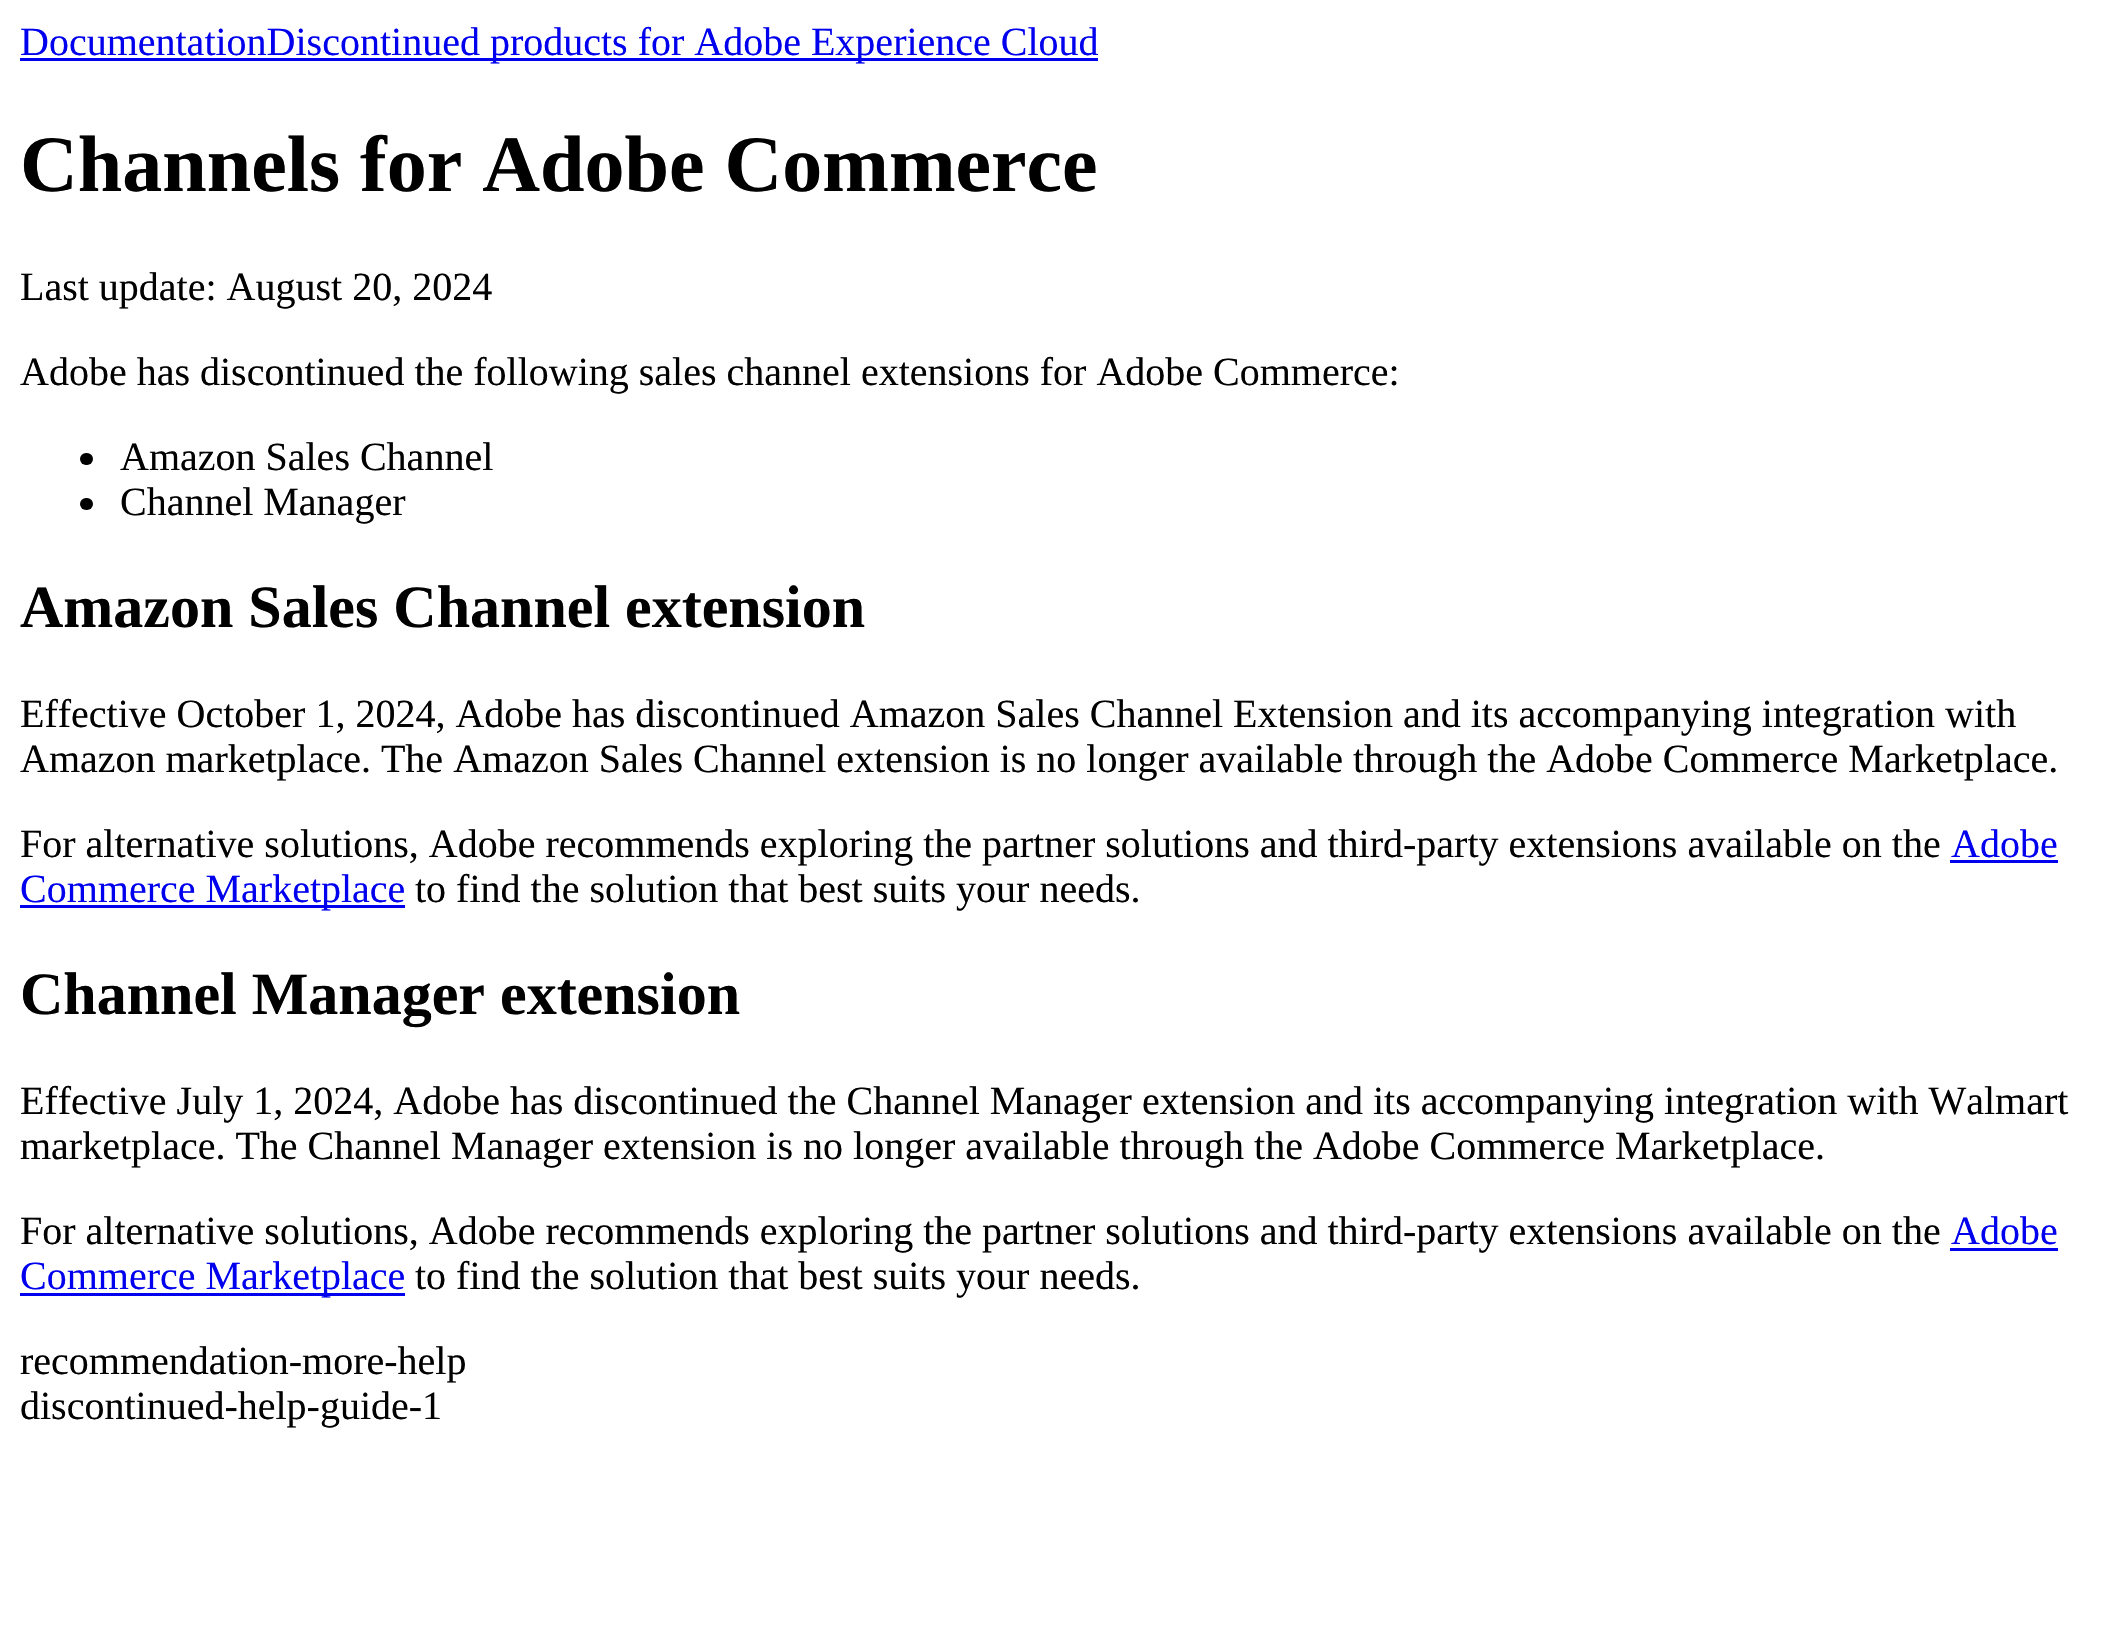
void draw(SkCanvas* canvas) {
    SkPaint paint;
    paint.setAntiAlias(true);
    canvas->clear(0xFFFFFFFF);
    paint.setColor(0xFF0000EE);
    canvas->drawRect(SkRect::MakeXYWH(20, 58, 1078, 3), paint);
    SkFont font1(fontMgr->matchFamilyStyle("Liberation Serif", SkFontStyle::Normal()), 40);
    font1.setSubpixel(true);
    canvas->drawString("DocumentationDiscontinued products for Adobe Experience Cloud", 20, 55, font1, paint);
    SkFont font2(fontMgr->matchFamilyStyle("Liberation Serif", SkFontStyle::Bold()), 80);
    font2.setSubpixel(true);
    paint.setColor(0xFF000000);
    canvas->drawString("Channels for Adobe Commerce", 20, 191, font2, paint);
    canvas->drawString("Last update: August 20, 2024", 20, 300, font1, paint);
    canvas->drawString("Adobe has discontinued the following sales channel extensions for Adobe Commerce:", 20, 385, font1, paint);
    canvas->drawRoundRect(SkRect::MakeXYWH(80, 453, 13, 12), 6, 6, paint);
    canvas->drawString("Amazon Sales Channel", 120, 470, font1, paint);
    canvas->drawRoundRect(SkRect::MakeXYWH(80, 498, 13, 12), 6, 6, paint);
    canvas->drawString("Channel Manager", 120, 515, font1, paint);
    SkFont font3(fontMgr->matchFamilyStyle("Liberation Serif", SkFontStyle::Bold()), 60);
    font3.setSubpixel(true);
    canvas->drawString("Amazon Sales Channel extension", 20, 627, font3, paint);
    canvas->drawString("Effective October 1, 2024, Adobe has discontinued Amazon Sales Channel Extension and its accompanying integration with", 20, 727, font1, paint);
    canvas->drawString("Amazon marketplace. The Amazon Sales Channel extension is no longer available through the Adobe Commerce Marketplace.", 20, 772, font1, paint);
    canvas->drawString("For alternative solutions, Adobe recommends exploring the partner solutions and third-party extensions available on the", 20, 857, font1, paint);
    paint.setColor(0xFF0000EE);
    canvas->drawString("Adobe", 1951, 857, font1, paint);
    canvas->drawRect(SkRect::MakeXYWH(1950, 860, 108, 3), paint);
    canvas->drawRect(SkRect::MakeXYWH(20, 905, 385, 3), paint);
    canvas->drawString("Commerce Marketplace", 20, 902, font1, paint);
    paint.setColor(0xFF000000);
    canvas->drawString("to find the solution that best suits your needs.", 415, 902, font1, paint);
    canvas->drawString("Channel Manager extension", 20, 1014, font3, paint);
    canvas->drawString("Effective July 1, 2024, Adobe has discontinued the Channel Manager extension and its accompanying integration with Walmart", 20, 1114, font1, paint);
    canvas->drawString("marketplace. The Channel Manager extension is no longer available through the Adobe Commerce Marketplace.", 20, 1159, font1, paint);
    canvas->drawString("For alternative solutions, Adobe recommends exploring the partner solutions and third-party extensions available on the", 20, 1244, font1, paint);
    paint.setColor(0xFF0000EE);
    canvas->drawString("Adobe", 1951, 1244, font1, paint);
    canvas->drawRect(SkRect::MakeXYWH(1950, 1248, 108, 3), paint);
    canvas->drawRect(SkRect::MakeXYWH(20, 1293, 385, 3), paint);
    canvas->drawString("Commerce Marketplace", 20, 1289, font1, paint);
    paint.setColor(0xFF000000);
    canvas->drawString("to find the solution that best suits your needs.", 415, 1289, font1, paint);
    canvas->drawString("recommendation-more-help", 20, 1374, font1, paint);
    canvas->drawString("discontinued-help-guide-1", 20, 1419, font1, paint);
}
